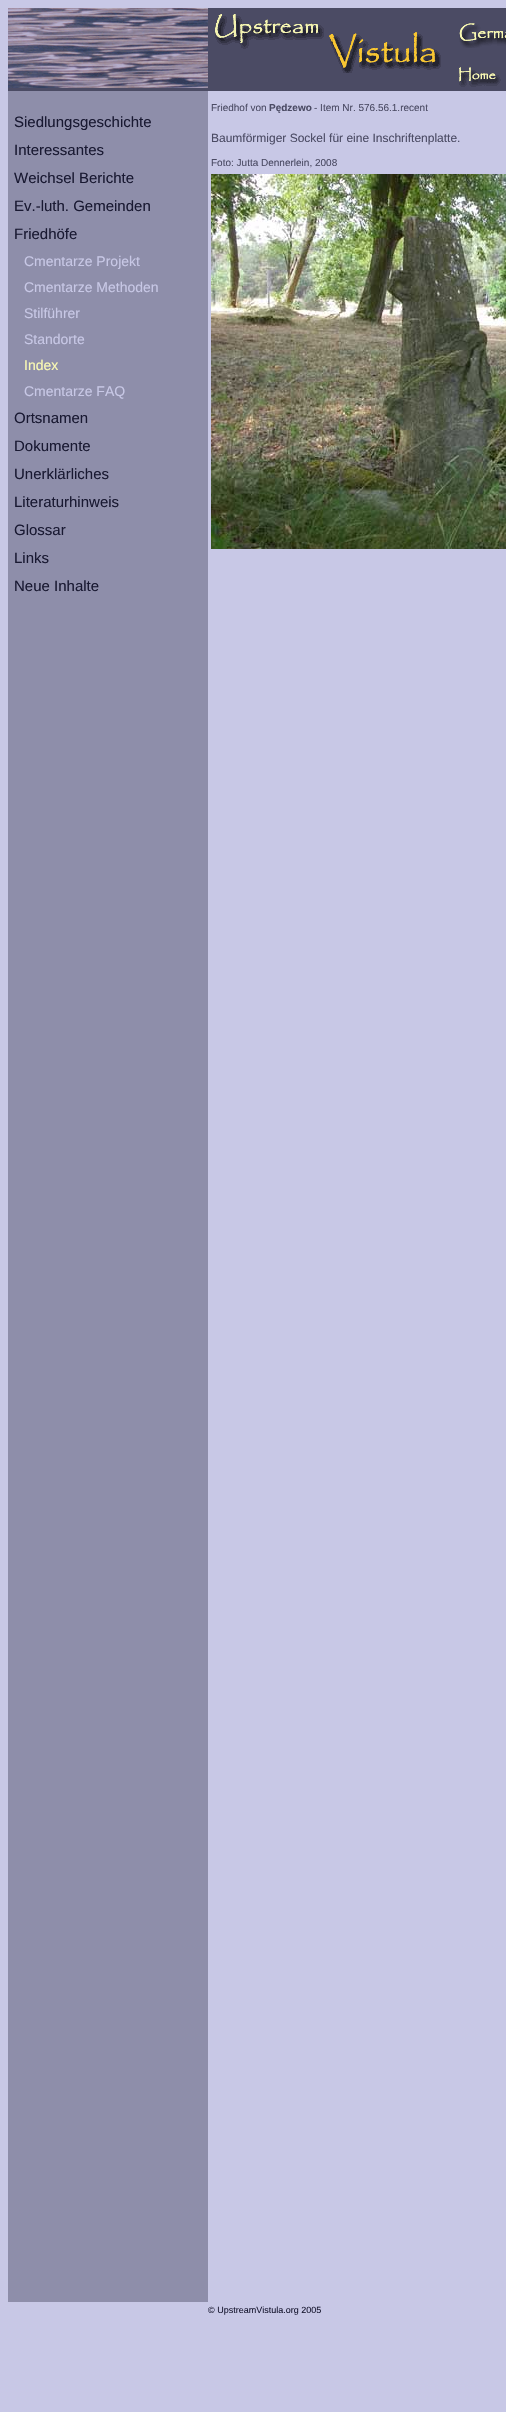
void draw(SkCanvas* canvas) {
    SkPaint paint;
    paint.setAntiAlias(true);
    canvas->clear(0xFFC8C8E6);
    paint.setColor(0xFF4B4B64);
    canvas->drawRect(SkRect::MakeXYWH(8, 8, 498, 83), paint);
    canvas->drawImageRect(SkImages::DeferredFromEncodedData(SkData::MakeFromFileName("img1.png")), SkRect::MakeXYWH(8, 8, 200, 80), SkSamplingOptions());
    canvas->drawImageRect(SkImages::DeferredFromEncodedData(SkData::MakeFromFileName("img2.png")), SkRect::MakeXYWH(215, 14, 226, 59), SkSamplingOptions());
    canvas->drawImageRect(SkImages::DeferredFromEncodedData(SkData::MakeFromFileName("img3.png")), SkRect::MakeXYWH(459, 23, 47, 25), SkSamplingOptions());
    canvas->drawImageRect(SkImages::DeferredFromEncodedData(SkData::MakeFromFileName("img4.png")), SkRect::MakeXYWH(459, 67, 42, 20), SkSamplingOptions());
    paint.setColor(0xFF8E8EAA);
    canvas->drawRect(SkRect::MakeXYWH(8, 91, 200, 2211), paint);
    SkFont font1(fontMgr->matchFamilyStyle("Liberation Sans", SkFontStyle::Normal()), 15);
    font1.setSubpixel(true);
    paint.setColor(0xFF191932);
    canvas->drawString("Siedlungsgeschichte", 14, 127, font1, paint);
    canvas->drawString("Interessantes", 14, 155, font1, paint);
    canvas->drawString("Weichsel Berichte", 14, 183, font1, paint);
    canvas->drawString("Ev.-luth. Gemeinden", 14, 211, font1, paint);
    canvas->drawString("Friedhöfe", 14, 239, font1, paint);
    SkFont font2(fontMgr->matchFamilyStyle("Liberation Sans", SkFontStyle::Normal()), 14);
    font2.setSubpixel(true);
    paint.setColor(0xFFC8C8E6);
    canvas->drawString("Cmentarze Projekt", 24, 266, font2, paint);
    canvas->drawString("Cmentarze Methoden", 24, 292, font2, paint);
    canvas->drawString("Stilführer", 24, 318, font2, paint);
    canvas->drawString("Standorte", 24, 344, font2, paint);
    paint.setColor(0xFFFAFAB4);
    canvas->drawString("Index", 24, 370, font2, paint);
    paint.setColor(0xFFC8C8E6);
    canvas->drawString("Cmentarze FAQ", 24, 396, font2, paint);
    paint.setColor(0xFF191932);
    canvas->drawString("Ortsnamen", 14, 423, font1, paint);
    canvas->drawString("Dokumente", 14, 451, font1, paint);
    canvas->drawString("Unerklärliches", 14, 479, font1, paint);
    canvas->drawString("Literaturhinweis", 14, 507, font1, paint);
    canvas->drawString("Glossar", 14, 535, font1, paint);
    canvas->drawString("Links", 14, 563, font1, paint);
    canvas->drawString("Neue Inhalte", 14, 591, font1, paint);
    SkFont font3(fontMgr->matchFamilyStyle("Liberation Sans", SkFontStyle::Normal()), 10);
    font3.setSubpixel(true);
    paint.setColor(0xFF4B4B64);
    canvas->drawString("Friedhof von", 211, 111, font3, paint);
    SkFont font4(fontMgr->matchFamilyStyle("Liberation Sans", SkFontStyle::Bold()), 10);
    font4.setSubpixel(true);
    canvas->drawString("Pędzewo", 269, 111, font4, paint);
    canvas->drawString("- Item Nr. 576.56.1.recent", 314, 111, font3, paint);
    SkFont font5(fontMgr->matchFamilyStyle("Liberation Sans", SkFontStyle::Normal()), 12);
    font5.setSubpixel(true);
    canvas->drawString("Baumförmiger Sockel für eine Inschriftenplatte.", 211, 142, font5, paint);
    canvas->drawString("Foto: Jutta Dennerlein, 2008", 211, 166, font3, paint);
    canvas->drawImageRect(SkImages::DeferredFromEncodedData(SkData::MakeFromFileName("img5.png")), SkRect::MakeXYWH(211, 174, 295, 375), SkSamplingOptions());
    SkFont font6(fontMgr->matchFamilyStyle("Liberation Sans", SkFontStyle::Normal()), 9);
    font6.setSubpixel(true);
    paint.setColor(0xFF191932);
    canvas->drawString("© UpstreamVistula.org 2005", 208, 2313, font6, paint);
}
